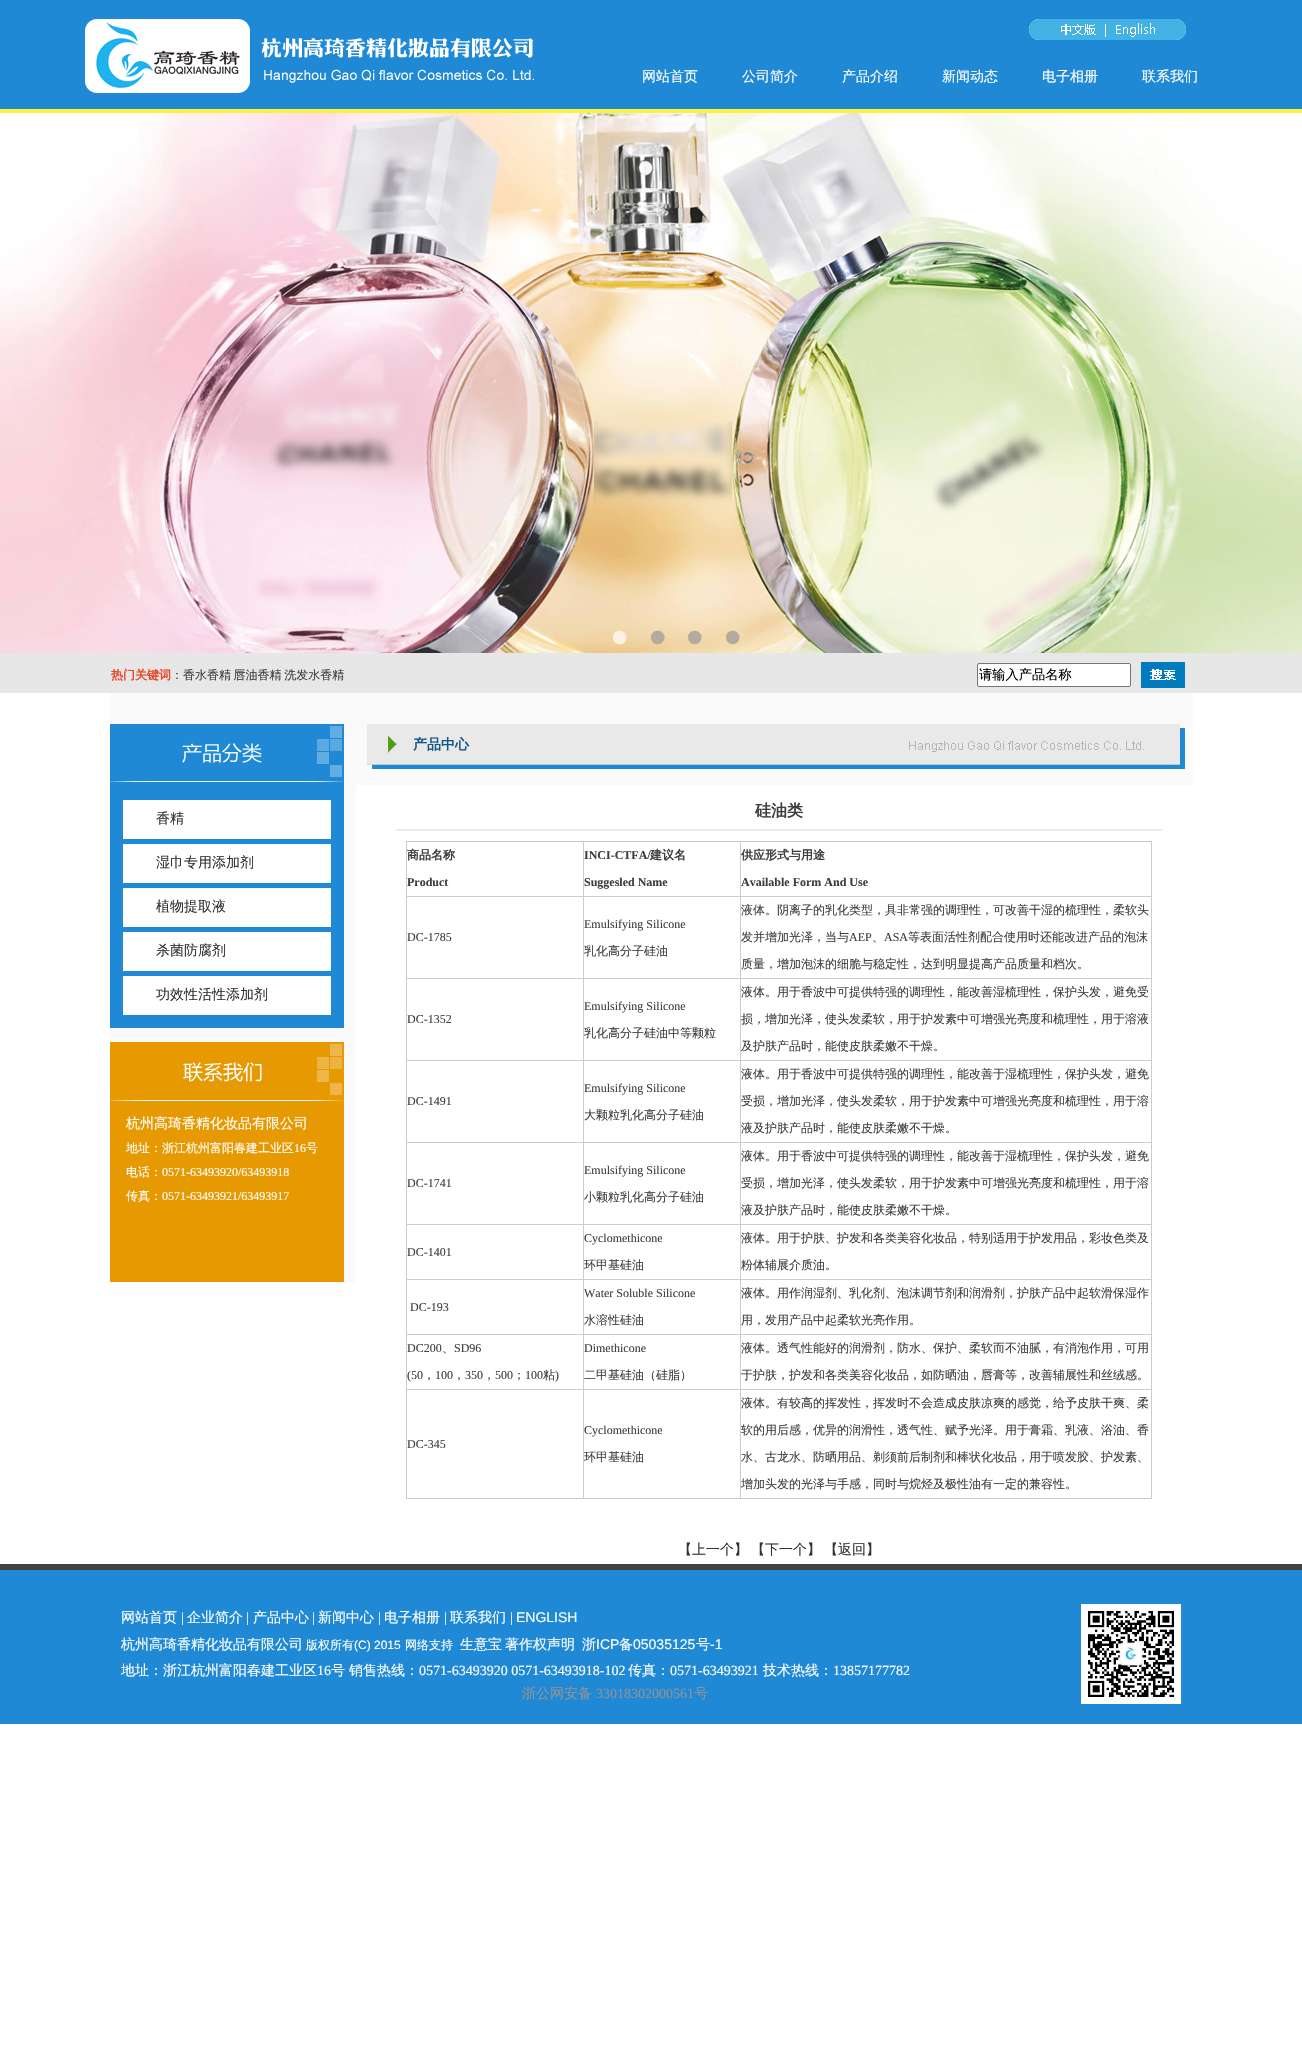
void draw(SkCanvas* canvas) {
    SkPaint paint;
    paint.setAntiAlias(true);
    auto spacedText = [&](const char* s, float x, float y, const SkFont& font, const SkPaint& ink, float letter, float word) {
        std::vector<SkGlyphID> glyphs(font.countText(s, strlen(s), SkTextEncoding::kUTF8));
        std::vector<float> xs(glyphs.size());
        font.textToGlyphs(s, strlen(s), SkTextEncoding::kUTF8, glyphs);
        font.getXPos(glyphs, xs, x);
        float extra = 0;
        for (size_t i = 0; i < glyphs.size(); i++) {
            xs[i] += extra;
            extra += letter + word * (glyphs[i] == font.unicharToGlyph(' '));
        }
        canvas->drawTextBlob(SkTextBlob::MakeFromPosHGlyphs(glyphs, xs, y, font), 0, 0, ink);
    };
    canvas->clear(0xFFFFFFFF);
    canvas->drawImageRect(SkImages::DeferredFromEncodedData(SkData::MakeFromFileName("img1.png")), SkRect::MakeXYWH(0, 0, 1302, 113), SkSamplingOptions());
    canvas->drawImageRect(SkImages::DeferredFromEncodedData(SkData::MakeFromFileName("img2.png")), SkRect::MakeXYWH(85, 19, 449, 74), SkSamplingOptions());
    canvas->drawImageRect(SkImages::DeferredFromEncodedData(SkData::MakeFromFileName("img3.png")), SkRect::MakeXYWH(1029, 19, 157, 21), SkSamplingOptions());
    SkFont font1(fontMgr->matchFamilyStyle("WenQuanYi Zen Hei", SkFontStyle(500, SkFontStyle::kNormal_Width, SkFontStyle::kUpright_Slant)), 14);
    font1.setSubpixel(true);
    paint.setColor(0xFFFFFFFF);
    canvas->drawString("网站首页", 642, 81, font1, paint);
    canvas->drawString("公司简介", 742, 81, font1, paint);
    canvas->drawString("产品介绍", 842, 81, font1, paint);
    canvas->drawString("新闻动态", 942, 81, font1, paint);
    canvas->drawString("电子相册", 1042, 81, font1, paint);
    canvas->drawString("联系我们", 1142, 81, font1, paint);
    canvas->drawImageRect(SkImages::DeferredFromEncodedData(SkData::MakeFromFileName("img4.png")), SkRect::MakeXYWH(0, 113, 1302, 540), SkSamplingOptions());
    SkFont font2(fontMgr->matchFamilyStyle("Liberation Sans", SkFontStyle::Normal()), 50);
    font2.setSubpixel(true);
    paint.setColor(0xFFFBF2E4);
    canvas->drawString("•", 611, 654, font2, paint);
    paint.setColor(0xFFB3AB9E);
    canvas->drawString("•", 649, 654, font2, paint);
    canvas->drawString("•", 686, 654, font2, paint);
    canvas->drawString("•", 724, 654, font2, paint);
    paint.setColor(0xFFE7E7E7);
    canvas->drawRect(SkRect::MakeXYWH(0, 653, 1302, 40), paint);
    SkFont font3(fontMgr->matchFamilyStyle("WenQuanYi Zen Hei", SkFontStyle::Bold()), 12);
    font3.setSubpixel(true);
    paint.setColor(0xFFEB4221);
    canvas->drawString("热门关键词", 111, 679, font3, paint);
    SkFont font4(fontMgr->matchFamilyStyle("WenQuanYi Zen Hei", SkFontStyle(500, SkFontStyle::kNormal_Width, SkFontStyle::kUpright_Slant)), 12);
    font4.setSubpixel(true);
    paint.setColor(0xFF3E3E3E);
    spacedText("：香水香精 唇油香精 洗发水香精", 171, 679, font4, paint, 0, -1);
    paint.setColor(0xFFFFFFFF);
    canvas->drawRoundRect(SkRect::MakeXYWH(977.5f, 663.5f, 153, 23), 1.5f, 1.5f, paint);
    paint.setStyle(SkPaint::kStroke_Style);
    paint.setStrokeWidth(1);
    paint.setColor(0xFF767676);
    canvas->drawRoundRect(SkRect::MakeXYWH(977.5f, 663.5f, 153, 23), 1.5f, 1.5f, paint);
    SkFont font5(fontMgr->matchFamilyStyle("WenQuanYi Zen Hei", SkFontStyle(500, SkFontStyle::kNormal_Width, SkFontStyle::kUpright_Slant)), 13.25f);
    font5.setSubpixel(true);
    paint.setStyle(SkPaint::kFill_Style);
    paint.setColor(0xFF000000);
    canvas->drawString("请输入产品名称", 979, 679, font5, paint);
    canvas->drawImageRect(SkImages::DeferredFromEncodedData(SkData::MakeFromFileName("img5.png")), SkRect::MakeXYWH(1141, 662, 44, 26), SkSamplingOptions());
    canvas->drawImageRect(SkImages::DeferredFromEncodedData(SkData::MakeFromFileName("img6.png")), SkRect::MakeXYWH(110, 693, 246, 105), SkSamplingOptions());
    canvas->drawImageRect(SkImages::DeferredFromEncodedData(SkData::MakeFromFileName("img7.png")), SkRect::MakeXYWH(110, 798, 246, 44), SkSamplingOptions());
    paint.setColor(0xFF333333);
    canvas->drawString("香精", 156, 823, font1, paint);
    canvas->drawImageRect(SkImages::DeferredFromEncodedData(SkData::MakeFromFileName("img7.png")), SkRect::MakeXYWH(110, 842, 246, 44), SkSamplingOptions());
    canvas->drawString("湿巾专用添加剂", 156, 867, font1, paint);
    canvas->drawImageRect(SkImages::DeferredFromEncodedData(SkData::MakeFromFileName("img7.png")), SkRect::MakeXYWH(110, 886, 246, 44), SkSamplingOptions());
    canvas->drawString("植物提取液", 156, 911, font1, paint);
    canvas->drawImageRect(SkImages::DeferredFromEncodedData(SkData::MakeFromFileName("img7.png")), SkRect::MakeXYWH(110, 930, 246, 44), SkSamplingOptions());
    canvas->drawString("杀菌防腐剂", 156, 955, font1, paint);
    canvas->drawImageRect(SkImages::DeferredFromEncodedData(SkData::MakeFromFileName("img7.png")), SkRect::MakeXYWH(110, 974, 246, 44), SkSamplingOptions());
    canvas->drawString("功效性活性添加剂", 156, 999, font1, paint);
    canvas->drawImageRect(SkImages::DeferredFromEncodedData(SkData::MakeFromFileName("img8.png")), SkRect::MakeXYWH(110, 1018, 246, 89), SkSamplingOptions());
    canvas->drawImageRect(SkImages::DeferredFromEncodedData(SkData::MakeFromFileName("img9.png")), SkRect::MakeXYWH(110, 1107, 246, 175), SkSamplingOptions());
    paint.setColor(0xFFFFFFFF);
    canvas->drawString("杭州高琦香精化妆品有限公司", 126, 1128, font1, paint);
    canvas->drawString("地址：浙江杭州富阳春建工业区", 126, 1152, font4, paint);
    SkFont font6(fontMgr->matchFamilyStyle("Liberation Serif", SkFontStyle::Normal()), 12);
    font6.setSubpixel(true);
    canvas->drawString("16", 294, 1152, font6, paint);
    canvas->drawString("号", 306, 1152, font4, paint);
    canvas->drawString("电话：", 126, 1176, font4, paint);
    canvas->drawString("0571-63493920/63493918", 162, 1176, font6, paint);
    canvas->drawString("传真：", 126, 1200, font4, paint);
    canvas->drawString("0571-63493921/63493917", 162, 1200, font6, paint);
    canvas->drawImageRect(SkImages::DeferredFromEncodedData(SkData::MakeFromFileName("img10.png")), SkRect::MakeXYWH(356, 693, 837, 92), SkSamplingOptions());
    SkFont font7(fontMgr->matchFamilyStyle("WenQuanYi Zen Hei", SkFontStyle::Bold()), 14);
    font7.setSubpixel(true);
    paint.setColor(0xFF14588B);
    canvas->drawString("产品中心", 413, 749, font7, paint);
    SkFont font8(fontMgr->matchFamilyStyle("WenQuanYi Zen Hei", SkFontStyle::Bold()), 16);
    font8.setSubpixel(true);
    paint.setColor(0xFF3E3E3E);
    canvas->drawString("硅油类", 755, 816, font8, paint);
    paint.setColor(0xFFEBEBEB);
    canvas->drawRect(SkRect::MakeXYWH(396, 829, 766, 2), paint);
    paint.setColor(0xFFCCCCCC);
    canvas->drawRect(SkRect::MakeXYWH(406, 841, 746, 658), paint);
    paint.setColor(0xFFFFFFFF);
    canvas->drawRect(SkRect::MakeXYWH(407, 842, 176, 54), paint);
    paint.setColor(0xFF3E3E3E);
    canvas->drawString("商品名称", 407, 859, font3, paint);
    SkFont font9(fontMgr->matchFamilyStyle("Liberation Serif", SkFontStyle::Bold()), 12);
    font9.setSubpixel(true);
    canvas->drawString("Product", 407, 886, font9, paint);
    paint.setColor(0xFFFFFFFF);
    canvas->drawRect(SkRect::MakeXYWH(584, 842, 156, 54), paint);
    paint.setColor(0xFF3E3E3E);
    canvas->drawString("INCI-CTFA/", 584, 859, font9, paint);
    canvas->drawString("建议名", 650, 859, font3, paint);
    canvas->drawString("Suggesled Name", 584, 886, font9, paint);
    paint.setColor(0xFFFFFFFF);
    canvas->drawRect(SkRect::MakeXYWH(741, 842, 410, 54), paint);
    paint.setColor(0xFF3E3E3E);
    canvas->drawString("供应形式与用途", 741, 859, font3, paint);
    canvas->drawString("Available Form And Use", 741, 886, font9, paint);
    paint.setColor(0xFFFFFFFF);
    canvas->drawRect(SkRect::MakeXYWH(407, 897, 176, 81), paint);
    paint.setColor(0xFF3E3E3E);
    canvas->drawString("DC-1785", 407, 941, font6, paint);
    paint.setColor(0xFFFFFFFF);
    canvas->drawRect(SkRect::MakeXYWH(584, 897, 156, 81), paint);
    paint.setColor(0xFF3E3E3E);
    canvas->drawString("Emulsifying Silicone", 584, 928, font6, paint);
    canvas->drawString("乳化高分子硅油", 584, 955, font4, paint);
    paint.setColor(0xFFFFFFFF);
    canvas->drawRect(SkRect::MakeXYWH(741, 897, 410, 81), paint);
    paint.setColor(0xFF3E3E3E);
    canvas->drawString("液体。阴离子的乳化类型，具非常强的调理性，可改善干湿的梳理性，柔软头", 741, 914, font4, paint);
    canvas->drawString("发并增加光泽，当与", 741, 941, font4, paint);
    canvas->drawString("AEP", 849, 941, font6, paint);
    canvas->drawString("、", 872, 941, font4, paint);
    canvas->drawString("ASA", 884, 941, font6, paint);
    canvas->drawString("等表面活性剂配合使用时还能改进产品的泡沫", 908, 941, font4, paint);
    canvas->drawString("质量，增加泡沫的细脆与稳定性，达到明显提高产品质量和档次。", 741, 968, font4, paint);
    paint.setColor(0xFFFFFFFF);
    canvas->drawRect(SkRect::MakeXYWH(407, 979, 176, 81), paint);
    paint.setColor(0xFF3E3E3E);
    canvas->drawString("DC-1352", 407, 1023, font6, paint);
    paint.setColor(0xFFFFFFFF);
    canvas->drawRect(SkRect::MakeXYWH(584, 979, 156, 81), paint);
    paint.setColor(0xFF3E3E3E);
    canvas->drawString("Emulsifying Silicone", 584, 1010, font6, paint);
    canvas->drawString("乳化高分子硅油中等颗粒", 584, 1037, font4, paint);
    paint.setColor(0xFFFFFFFF);
    canvas->drawRect(SkRect::MakeXYWH(741, 979, 410, 81), paint);
    paint.setColor(0xFF3E3E3E);
    canvas->drawString("液体。用于香波中可提供特强的调理性，能改善湿梳理性，保护头发，避免受", 741, 996, font4, paint);
    canvas->drawString("损，增加光泽，使头发柔软，用于护发素中可增强光亮度和梳理性，用于溶液", 741, 1023, font4, paint);
    canvas->drawString("及护肤产品时，能使皮肤柔嫩不干燥。", 741, 1050, font4, paint);
    paint.setColor(0xFFFFFFFF);
    canvas->drawRect(SkRect::MakeXYWH(407, 1061, 176, 81), paint);
    paint.setColor(0xFF3E3E3E);
    canvas->drawString("DC-1491", 407, 1105, font6, paint);
    paint.setColor(0xFFFFFFFF);
    canvas->drawRect(SkRect::MakeXYWH(584, 1061, 156, 81), paint);
    paint.setColor(0xFF3E3E3E);
    canvas->drawString("Emulsifying Silicone", 584, 1092, font6, paint);
    canvas->drawString("大颗粒乳化高分子硅油", 584, 1119, font4, paint);
    paint.setColor(0xFFFFFFFF);
    canvas->drawRect(SkRect::MakeXYWH(741, 1061, 410, 81), paint);
    paint.setColor(0xFF3E3E3E);
    canvas->drawString("液体。用于香波中可提供特强的调理性，能改善于湿梳理性，保护头发，避免", 741, 1078, font4, paint);
    canvas->drawString("受损，增加光泽，使头发柔软，用于护发素中可增强光亮度和梳理性，用于溶", 741, 1105, font4, paint);
    canvas->drawString("液及护肤产品时，能使皮肤柔嫩不干燥。", 741, 1132, font4, paint);
    paint.setColor(0xFFFFFFFF);
    canvas->drawRect(SkRect::MakeXYWH(407, 1143, 176, 81), paint);
    paint.setColor(0xFF3E3E3E);
    canvas->drawString("DC-1741", 407, 1187, font6, paint);
    paint.setColor(0xFFFFFFFF);
    canvas->drawRect(SkRect::MakeXYWH(584, 1143, 156, 81), paint);
    paint.setColor(0xFF3E3E3E);
    canvas->drawString("Emulsifying Silicone", 584, 1174, font6, paint);
    canvas->drawString("小颗粒乳化高分子硅油", 584, 1201, font4, paint);
    paint.setColor(0xFFFFFFFF);
    canvas->drawRect(SkRect::MakeXYWH(741, 1143, 410, 81), paint);
    paint.setColor(0xFF3E3E3E);
    canvas->drawString("液体。用于香波中可提供特强的调理性，能改善于湿梳理性，保护头发，避免", 741, 1160, font4, paint);
    canvas->drawString("受损，增加光泽，使头发柔软，用于护发素中可增强光亮度和梳理性，用于溶", 741, 1187, font4, paint);
    canvas->drawString("液及护肤产品时，能使皮肤柔嫩不干燥。", 741, 1214, font4, paint);
    paint.setColor(0xFFFFFFFF);
    canvas->drawRect(SkRect::MakeXYWH(407, 1225, 176, 54), paint);
    paint.setColor(0xFF3E3E3E);
    canvas->drawString("DC-1401", 407, 1256, font6, paint);
    paint.setColor(0xFFFFFFFF);
    canvas->drawRect(SkRect::MakeXYWH(584, 1225, 156, 54), paint);
    paint.setColor(0xFF3E3E3E);
    canvas->drawString("Cyclomethicone", 584, 1242, font6, paint);
    canvas->drawString("环甲基硅油", 584, 1269, font4, paint);
    paint.setColor(0xFFFFFFFF);
    canvas->drawRect(SkRect::MakeXYWH(741, 1225, 410, 54), paint);
    paint.setColor(0xFF3E3E3E);
    canvas->drawString("液体。用于护肤、护发和各类美容化妆品，特别适用于护发用品，彩妆色类及", 741, 1242, font4, paint);
    canvas->drawString("粉体辅展介质油。", 741, 1269, font4, paint);
    paint.setColor(0xFFFFFFFF);
    canvas->drawRect(SkRect::MakeXYWH(407, 1280, 176, 54), paint);
    paint.setColor(0xFF3E3E3E);
    canvas->drawString("DC-193", 410, 1311, font6, paint);
    paint.setColor(0xFFFFFFFF);
    canvas->drawRect(SkRect::MakeXYWH(584, 1280, 156, 54), paint);
    paint.setColor(0xFF3E3E3E);
    canvas->drawString("Water Soluble Silicone", 584, 1297, font6, paint);
    canvas->drawString("水溶性硅油", 584, 1324, font4, paint);
    paint.setColor(0xFFFFFFFF);
    canvas->drawRect(SkRect::MakeXYWH(741, 1280, 410, 54), paint);
    paint.setColor(0xFF3E3E3E);
    canvas->drawString("液体。用作润湿剂、乳化剂、泡沫调节剂和润滑剂，护肤产品中起软滑保湿作", 741, 1297, font4, paint);
    canvas->drawString("用，发用产品中起柔软光亮作用。", 741, 1324, font4, paint);
    paint.setColor(0xFFFFFFFF);
    canvas->drawRect(SkRect::MakeXYWH(407, 1335, 176, 54), paint);
    paint.setColor(0xFF3E3E3E);
    canvas->drawString("DC200", 407, 1352, font6, paint);
    canvas->drawString("、", 442, 1352, font4, paint);
    canvas->drawString("SD96", 454, 1352, font6, paint);
    canvas->drawString("(50", 407, 1379, font6, paint);
    canvas->drawString("，", 423, 1379, font4, paint);
    canvas->drawString("100", 435, 1379, font6, paint);
    canvas->drawString("，", 453, 1379, font4, paint);
    canvas->drawString("350", 465, 1379, font6, paint);
    canvas->drawString("，", 483, 1379, font4, paint);
    canvas->drawString("500", 495, 1379, font6, paint);
    canvas->drawString("；", 513, 1379, font4, paint);
    canvas->drawString("100", 525, 1379, font6, paint);
    canvas->drawString("粘", 543, 1379, font4, paint);
    canvas->drawString(")", 555, 1379, font6, paint);
    paint.setColor(0xFFFFFFFF);
    canvas->drawRect(SkRect::MakeXYWH(584, 1335, 156, 54), paint);
    paint.setColor(0xFF3E3E3E);
    canvas->drawString("Dimethicone", 584, 1352, font6, paint);
    canvas->drawString("二甲基硅油（硅脂）", 584, 1379, font4, paint);
    paint.setColor(0xFFFFFFFF);
    canvas->drawRect(SkRect::MakeXYWH(741, 1335, 410, 54), paint);
    paint.setColor(0xFF3E3E3E);
    canvas->drawString("液体。透气性能好的润滑剂，防水、保护、柔软而不油腻，有消泡作用，可用", 741, 1352, font4, paint);
    canvas->drawString("于护肤，护发和各类美容化妆品，如防晒油，唇膏等，改善辅展性和丝绒感。", 741, 1379, font4, paint);
    paint.setColor(0xFFFFFFFF);
    canvas->drawRect(SkRect::MakeXYWH(407, 1390, 176, 108), paint);
    paint.setColor(0xFF3E3E3E);
    canvas->drawString("DC-345", 407, 1448, font6, paint);
    paint.setColor(0xFFFFFFFF);
    canvas->drawRect(SkRect::MakeXYWH(584, 1390, 156, 108), paint);
    paint.setColor(0xFF3E3E3E);
    canvas->drawString("Cyclomethicone", 584, 1434, font6, paint);
    canvas->drawString("环甲基硅油", 584, 1461, font4, paint);
    paint.setColor(0xFFFFFFFF);
    canvas->drawRect(SkRect::MakeXYWH(741, 1390, 410, 108), paint);
    paint.setColor(0xFF3E3E3E);
    canvas->drawString("液体。有较高的挥发性，挥发时不会造成皮肤凉爽的感觉，给予皮肤干爽、柔", 741, 1407, font4, paint);
    canvas->drawString("软的用后感，优异的润滑性，透气性、赋予光泽。用于膏霜、乳液、浴油、香", 741, 1434, font4, paint);
    canvas->drawString("水、古龙水、防晒用品、剃须前后制剂和棒状化妆品，用于喷发胶、护发素、", 741, 1461, font4, paint);
    canvas->drawString("增加头发的光泽与手感，同时与烷烃及极性油有一定的兼容性。", 741, 1488, font4, paint);
    paint.setColor(0xFF333333);
    canvas->drawString("【上一个】", 678, 1554, font1, paint);
    canvas->drawString("【下一个】", 751, 1554, font1, paint);
    canvas->drawString("【返回】", 824, 1554, font1, paint);
    canvas->drawImageRect(SkImages::DeferredFromEncodedData(SkData::MakeFromFileName("img11.png")), SkRect::MakeXYWH(0, 1564, 1302, 162), SkSamplingOptions());
    paint.setColor(0xFFFFFFFF);
    canvas->drawString("网站首页", 121, 1622, font1, paint);
    SkFont font10(fontMgr->matchFamilyStyle("Liberation Serif", SkFontStyle::Normal()), 14);
    font10.setSubpixel(true);
    canvas->drawString("|", 181, 1622, font10, paint);
    canvas->drawString("企业简介", 187, 1622, font1, paint);
    canvas->drawString("|", 246, 1622, font10, paint);
    canvas->drawString("产品中心", 253, 1622, font1, paint);
    canvas->drawString("|", 312, 1622, font10, paint);
    canvas->drawString("新闻中心", 318, 1622, font1, paint);
    canvas->drawString("|", 378, 1622, font10, paint);
    canvas->drawString("电子相册", 384, 1622, font1, paint);
    canvas->drawString("|", 444, 1622, font10, paint);
    canvas->drawString("联系我们", 450, 1622, font1, paint);
    canvas->drawString("|", 510, 1622, font10, paint);
    SkFont font11(fontMgr->matchFamilyStyle("Liberation Sans", SkFontStyle::Normal()), 14);
    font11.setSubpixel(true);
    canvas->drawString("ENGLISH", 516, 1622, font11, paint);
    canvas->drawImageRect(SkImages::DeferredFromEncodedData(SkData::MakeFromFileName("img12.png")), SkRect::MakeXYWH(1081, 1604, 100, 100), SkSamplingOptions());
    canvas->drawString("杭州高琦香精化妆品有限公司", 121, 1649, font1, paint);
    canvas->drawString("版权所有", 306, 1649, font4, paint);
    SkFont font12(fontMgr->matchFamilyStyle("Liberation Sans", SkFontStyle::Normal()), 12);
    font12.setSubpixel(true);
    canvas->drawString("(C) 2015", 354, 1649, font12, paint);
    canvas->drawString("网络支持", 405, 1649, font4, paint);
    canvas->drawString("生意宝", 460, 1649, font1, paint);
    canvas->drawString("著作权声明", 505, 1649, font1, paint);
    canvas->drawString("浙", 582, 1649, font1, paint);
    canvas->drawString("ICP", 596, 1649, font11, paint);
    canvas->drawString("备", 619, 1649, font1, paint);
    canvas->drawString("05035125", 633, 1649, font11, paint);
    canvas->drawString("号", 696, 1649, font1, paint);
    canvas->drawString("-1", 710, 1649, font11, paint);
    canvas->drawString("地址：浙江杭州富阳春建工业区", 121, 1675, font1, paint);
    canvas->drawString("16", 317, 1675, font10, paint);
    canvas->drawString("号", 331, 1675, font1, paint);
    canvas->drawString("销售热线：", 349, 1675, font1, paint);
    canvas->drawString("0571-63493920 0571-63493918-102", 419, 1675, font10, paint);
    canvas->drawString("传真：", 628, 1675, font1, paint);
    canvas->drawString("0571-63493921", 670, 1675, font10, paint);
    canvas->drawString("技术热线：", 763, 1675, font1, paint);
    canvas->drawString("13857177782", 833, 1675, font10, paint);
    paint.setColor(0xFF939393);
    canvas->drawString("浙公网安备", 522, 1698, font1, paint);
    canvas->drawString("33018302000561", 596, 1698, font10, paint);
    canvas->drawString("号", 694, 1698, font1, paint);
}
